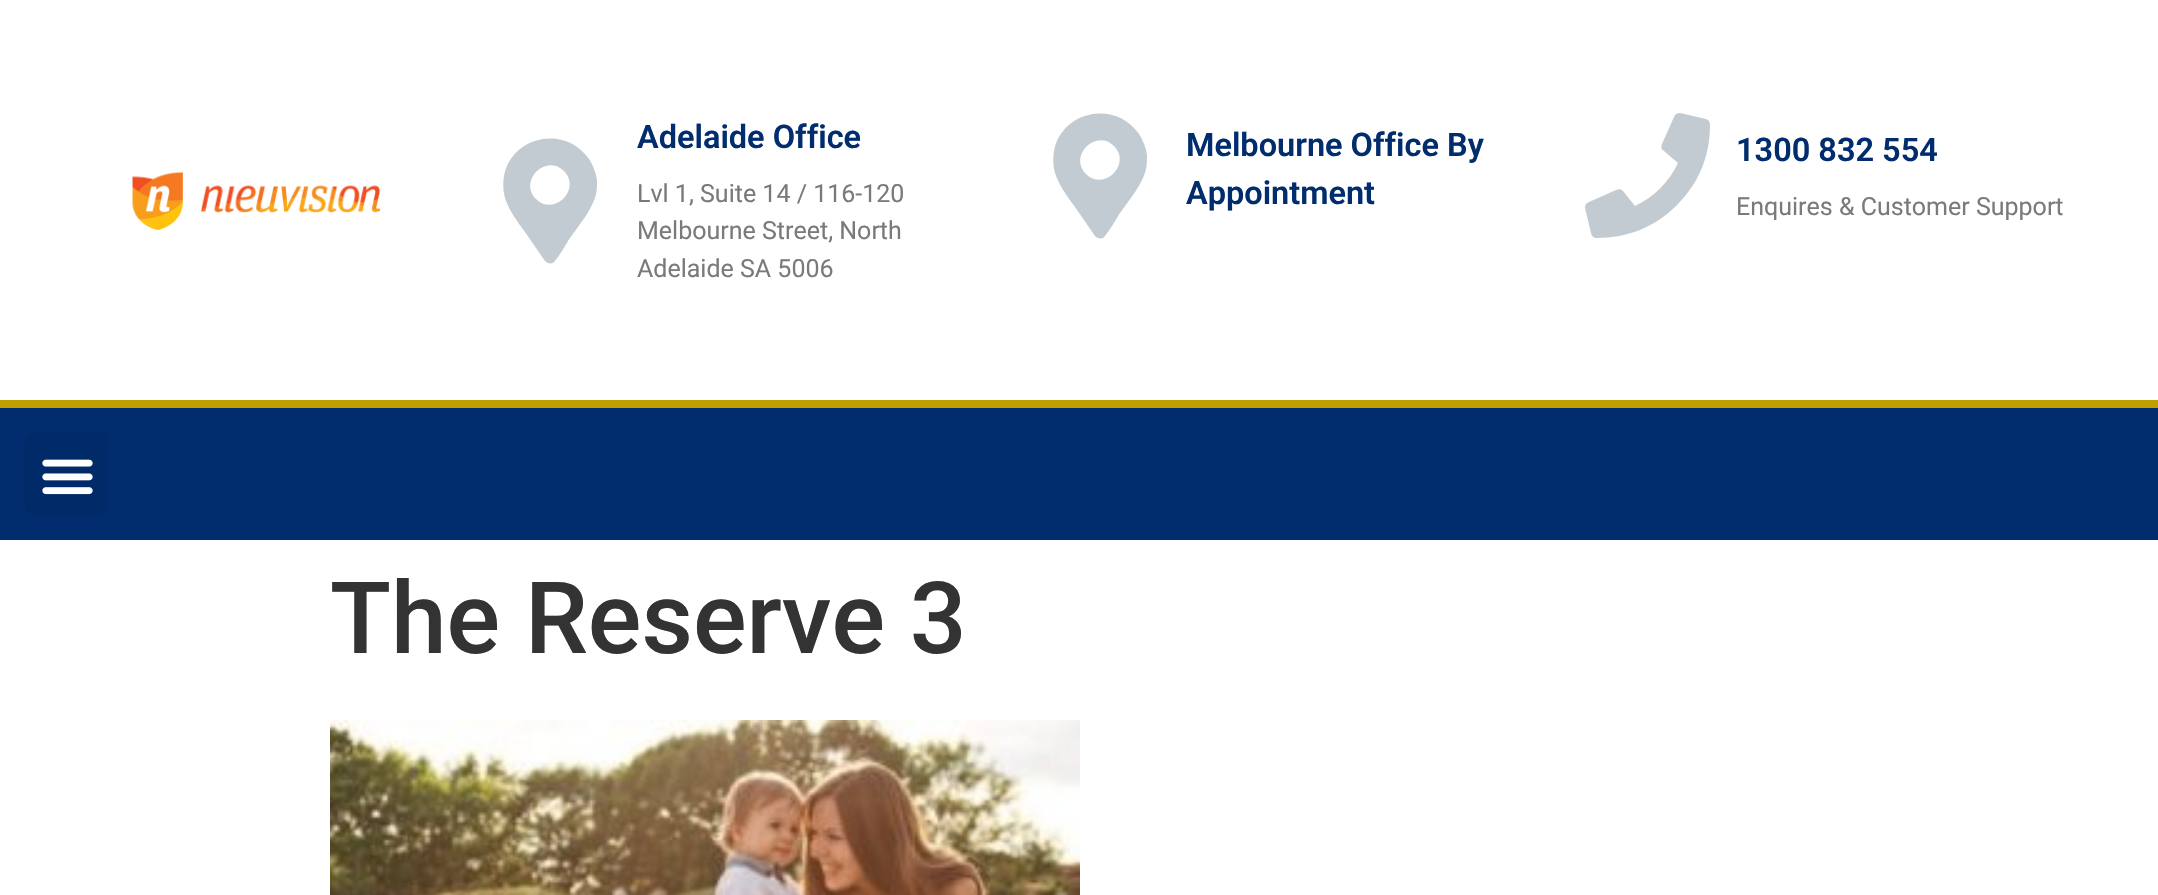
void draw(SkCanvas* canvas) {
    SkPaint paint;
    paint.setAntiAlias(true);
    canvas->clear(0xFFFFFFFF);
    canvas->drawImageRect(SkImages::DeferredFromEncodedData(SkData::MakeFromFileName("img1.png")), SkRect::MakeXYWH(132, 172, 248, 58), SkSamplingOptions());
    paint.setColor(0xFFC2CBD2);
    canvas->drawPath(SkPathBuilder().moveTo(545, 261).lineTo(525, 232).cubicTo(517, 221, 507, 208, 504, 194).cubicTo(503, 188, 503, 181, 504, 176).cubicTo(512, 135, 566, 125, 589, 159).cubicTo(593, 165, 596, 173, 597, 180).cubicTo(597, 185, 597, 189, 596, 194).cubicTo(593, 209, 577, 228, 568, 241).cubicTo(566, 245, 556, 261, 553, 263).cubicTo(550, 264, 547, 263, 545, 261).close().moveTo(536, 199).cubicTo(554, 217, 582, 189, 564, 171).cubicTo(546, 153, 518, 181, 536, 199).close().detach(), paint);
    SkFont font1(fontMgr->matchFamilyStyle("Roboto", SkFontStyle(600, SkFontStyle::kNormal_Width, SkFontStyle::kUpright_Slant)), 32.5f);
    font1.setSubpixel(true);
    paint.setColor(0xFF012C6D);
    canvas->drawString("Adelaide Office", 637, 148, font1, paint);
    SkFont font2(fontMgr->matchFamilyStyle("Roboto", SkFontStyle::Normal()), 25);
    font2.setSubpixel(true);
    paint.setColor(0xFF7A7A7A);
    canvas->drawString("Lvl 1, Suite 14 / 116-120", 637, 202, font2, paint);
    canvas->drawString("Melbourne Street, North", 637, 239, font2, paint);
    canvas->drawString("Adelaide SA 5006", 637, 277, font2, paint);
    paint.setColor(0xFFC2CBD2);
    canvas->drawPath(SkPathBuilder().moveTo(1095, 236).lineTo(1075, 207).cubicTo(1067, 196, 1057, 183, 1054, 169).cubicTo(1053, 163, 1053, 156, 1054, 151).cubicTo(1062, 110, 1116, 100, 1139, 134).cubicTo(1143, 140, 1146, 148, 1147, 155).cubicTo(1147, 160, 1147, 164, 1146, 169).cubicTo(1143, 184, 1127, 203, 1118, 216).cubicTo(1116, 220, 1106, 236, 1103, 238).cubicTo(1100, 239, 1097, 238, 1095, 236).close().moveTo(1086, 174).cubicTo(1104, 192, 1132, 164, 1114, 146).cubicTo(1096, 128, 1068, 156, 1086, 174).close().detach(), paint);
    paint.setColor(0xFF012C6D);
    canvas->drawString("Melbourne Office By", 1186, 156, font1, paint);
    canvas->drawString("Appointment", 1186, 204, font1, paint);
    paint.setColor(0xFFC2CBD2);
    canvas->drawPath(SkPathBuilder().moveTo(1706, 119).cubicTo(1709, 120, 1710, 122, 1710, 125).cubicTo(1710, 156, 1699, 183, 1677, 205).cubicTo(1655, 227, 1628, 238, 1597, 238).cubicTo(1594, 238, 1592, 237, 1591, 233).lineTo(1585, 208).cubicTo(1585, 205, 1586, 203, 1589, 202).lineTo(1616, 190).cubicTo(1619, 189, 1621, 189, 1623, 191).lineTo(1635, 206).cubicTo(1654, 197, 1669, 182, 1678, 163).lineTo(1664, 151).cubicTo(1661, 149, 1661, 147, 1662, 144).lineTo(1674, 117).cubicTo(1675, 114, 1677, 113, 1680, 113).close().detach(), paint);
    paint.setColor(0xFF012C6D);
    canvas->drawString("1300 832 554", 1736, 161, font1, paint);
    paint.setColor(0xFF7A7A7A);
    canvas->drawString("Enquires & Customer Support", 1736, 215, font2, paint);
    paint.setColor(0xFF012C6D);
    canvas->drawRect(SkRect::MakeXYWH(0, 408, 2158, 132), paint);
    paint.setColor(0xFFBF9F00);
    canvas->drawRect(SkRect::MakeXYWH(0, 400, 2158, 8), paint);
    paint.setColor(0xFF012A68);
    canvas->drawRoundRect(SkRect::MakeXYWH(25, 433, 83, 82), 8, 8, paint);
    canvas->drawImageRect(SkImages::DeferredFromEncodedData(SkData::MakeFromFileName("img2.png")), SkRect::MakeXYWH(42, 459, 51, 36), SkSamplingOptions());
    SkFont font3(fontMgr->matchFamilyStyle("Roboto", SkFontStyle(500, SkFontStyle::kNormal_Width, SkFontStyle::kUpright_Slant)), 100);
    font3.setSubpixel(true);
    paint.setColor(0xFF333333);
    canvas->drawString("The Reserve 3", 330, 653, font3, paint);
    canvas->drawImageRect(SkImages::DeferredFromEncodedData(SkData::MakeFromFileName("img3.png")), SkRect::MakeXYWH(330, 720, 750, 175), SkSamplingOptions());
}
